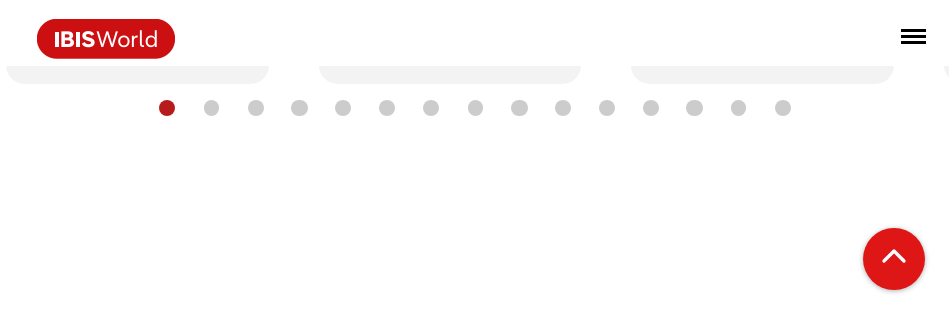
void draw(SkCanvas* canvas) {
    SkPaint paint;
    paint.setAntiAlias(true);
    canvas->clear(0xFFFFFFFF);
    paint.setColor(0xFFF3F3F3);
    canvas->drawRoundRect(SkRect::MakeXYWH(6, -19, 263, 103), 19, 19, paint);
    canvas->drawRoundRect(SkRect::MakeXYWH(319, -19, 262, 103), 19, 19, paint);
    canvas->drawRoundRect(SkRect::MakeXYWH(631, -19, 263, 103), 19, 19, paint);
    canvas->drawPath(SkPathBuilder().moveTo(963, -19).lineTo(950, -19).lineTo(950, 84).lineTo(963, 84).cubicTo(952.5f, 84, 944, 75.5f, 944, 65).lineTo(944, 0).cubicTo(944, -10.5f, 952.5f, -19, 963, -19).close().detach(), paint);
    paint.setColor(0xFFB71C1C);
    canvas->drawCircle(167, 108, 8, paint);
    paint.setColor(0xFFCCCCCC);
    canvas->drawRoundRect(SkRect::MakeXYWH(204, 100, 15, 16), 7.5f, 7.5f, paint);
    canvas->drawCircle(256, 108, 8, paint);
    canvas->drawRoundRect(SkRect::MakeXYWH(291, 100, 17, 16), 8, 8, paint);
    canvas->drawCircle(343, 108, 8, paint);
    canvas->drawCircle(387, 108, 8, paint);
    canvas->drawCircle(431, 108, 8, paint);
    canvas->drawRoundRect(SkRect::MakeXYWH(468, 100, 15, 16), 7.5f, 7.5f, paint);
    canvas->drawRoundRect(SkRect::MakeXYWH(511, 100, 17, 16), 8, 8, paint);
    canvas->drawCircle(563, 108, 8, paint);
    canvas->drawCircle(607, 108, 8, paint);
    canvas->drawCircle(651, 108, 8, paint);
    canvas->drawRoundRect(SkRect::MakeXYWH(686, 100, 17, 16), 8, 8, paint);
    canvas->drawRoundRect(SkRect::MakeXYWH(731, 100, 15, 16), 7.5f, 7.5f, paint);
    canvas->drawCircle(783, 108, 8, paint);
    paint.setColor(0xFFFFFFFF);
    canvas->drawRect(SkRect::MakeXYWH(6, 0, 943, 66), paint);
    canvas->drawImageRect(SkImages::DeferredFromEncodedData(SkData::MakeFromFileName("img1.png")), SkRect::MakeXYWH(37, 19, 138, 40), SkSamplingOptions());
    paint.setColor(0xFF000000);
    canvas->drawRect(SkRect::MakeXYWH(901, 29, 25, 3), paint);
    canvas->drawRect(SkRect::MakeXYWH(901, 35, 25, 3), paint);
    canvas->drawRect(SkRect::MakeXYWH(901, 41, 25, 3), paint);
    paint.setColor(0x4D000000);
    paint.setMaskFilter(SkMaskFilter::MakeBlur(kNormal_SkBlurStyle, 2.5f));
    canvas->drawRoundRect(SkRect::MakeXYWH(863, 229, 62, 62), 31, 31, paint);
    paint.setMaskFilter(nullptr);
    paint.setColor(0xFFDF1616);
    canvas->drawCircle(894, 259, 31, paint);
    paint.setStyle(SkPaint::kStroke_Style);
    paint.setStrokeWidth(3.3f);
    paint.setStrokeCap(SkPaint::kRound_Cap);
    paint.setStrokeJoin(SkPaint::kRound_Join);
    paint.setColor(0xFFFFFFFF);
    canvas->drawPath(SkPathBuilder().moveTo(904, 261).lineTo(894, 251).lineTo(884, 261).detach(), paint);
}
